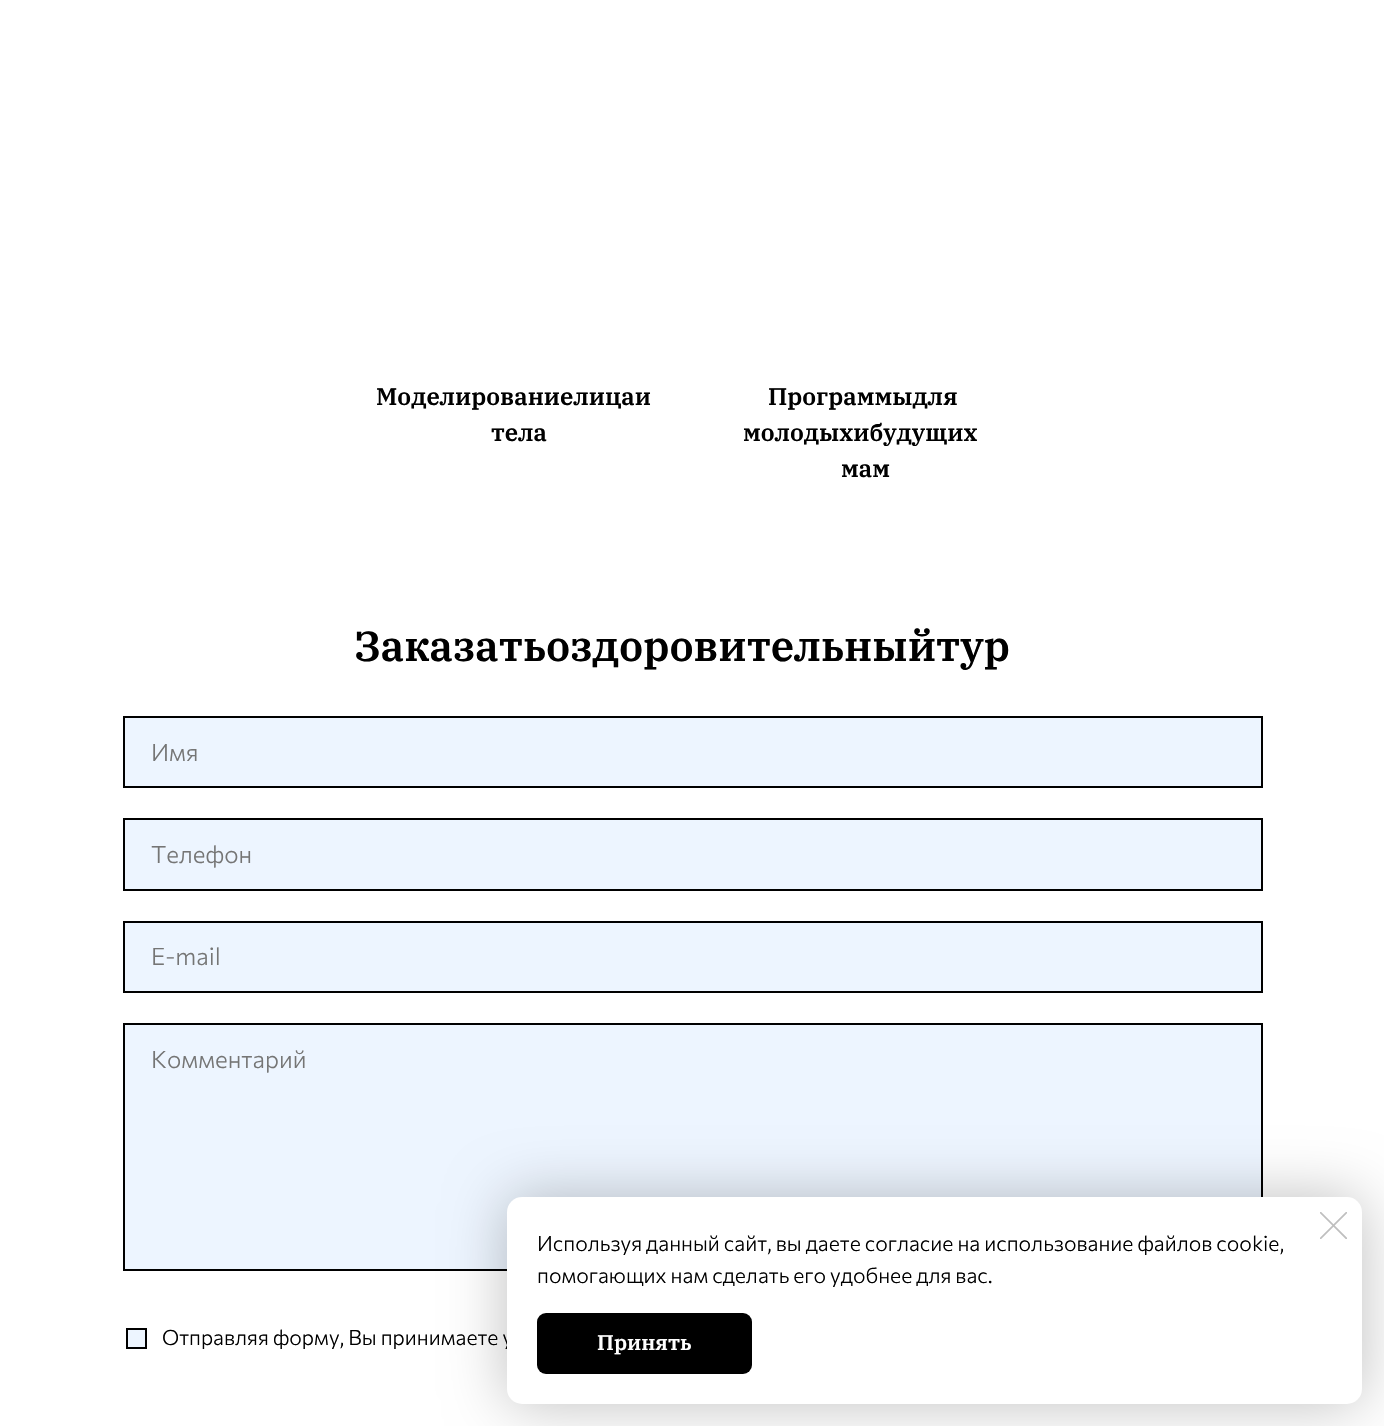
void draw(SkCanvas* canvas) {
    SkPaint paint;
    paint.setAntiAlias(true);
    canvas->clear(0xFFFFFFFF);
    SkFont font1(fontMgr->matchFamilyStyle("IBM Plex Serif", SkFontStyle(600, SkFontStyle::kNormal_Width, SkFontStyle::kUpright_Slant)), 24);
    font1.setSubpixel(true);
    paint.setColor(0xFF000000);
    canvas->drawString("Моделирование лица и", 376, 405, font1, paint);
    canvas->drawString("тела", 491, 441, font1, paint);
    canvas->drawString("Программы для", 768, 405, font1, paint);
    canvas->drawString("молодых и будущих", 743, 441, font1, paint);
    canvas->drawString("мам", 841, 477, font1, paint);
    SkFont font2(fontMgr->matchFamilyStyle("IBM Plex Serif", SkFontStyle(600, SkFontStyle::kNormal_Width, SkFontStyle::kUpright_Slant)), 42);
    font2.setSubpixel(true);
    canvas->drawString("Заказать оздоровительный тур", 354, 661, font2, paint);
    paint.setColor(0xFFEDF5FF);
    canvas->drawRect(SkRect::MakeXYWH(124, 717, 1138, 70), paint);
    paint.setStyle(SkPaint::kStroke_Style);
    paint.setStrokeWidth(2);
    paint.setColor(0xFF000000);
    canvas->drawRect(SkRect::MakeXYWH(124, 717, 1138, 70), paint);
    SkFont font3(fontMgr->matchFamilyStyle("Commissioner", SkFontStyle(300, SkFontStyle::kNormal_Width, SkFontStyle::kUpright_Slant)), 24);
    font3.setSubpixel(true);
    paint.setStyle(SkPaint::kFill_Style);
    paint.setColor(0xFF757575);
    canvas->drawString("Имя", 151, 761, font3, paint);
    paint.setColor(0xFFEDF5FF);
    canvas->drawRect(SkRect::MakeXYWH(124, 819, 1138, 71), paint);
    paint.setStyle(SkPaint::kStroke_Style);
    paint.setColor(0xFF000000);
    canvas->drawRect(SkRect::MakeXYWH(124, 819, 1138, 71), paint);
    paint.setStyle(SkPaint::kFill_Style);
    paint.setColor(0xFF757575);
    canvas->drawString("Телефон", 151, 863, font3, paint);
    paint.setColor(0xFFEDF5FF);
    canvas->drawRect(SkRect::MakeXYWH(124, 922, 1138, 70), paint);
    paint.setStyle(SkPaint::kStroke_Style);
    paint.setColor(0xFF000000);
    canvas->drawRect(SkRect::MakeXYWH(124, 922, 1138, 70), paint);
    paint.setStyle(SkPaint::kFill_Style);
    paint.setColor(0xFF757575);
    canvas->drawString("E-mail", 151, 965, font3, paint);
    paint.setColor(0xFFEDF5FF);
    canvas->drawRect(SkRect::MakeXYWH(124, 1024, 1138, 246), paint);
    paint.setStyle(SkPaint::kStroke_Style);
    paint.setColor(0xFF000000);
    canvas->drawRect(SkRect::MakeXYWH(124, 1024, 1138, 246), paint);
    paint.setStyle(SkPaint::kFill_Style);
    paint.setColor(0xFF757575);
    canvas->drawString("Комментарий", 151, 1068, font3, paint);
    paint.setColor(0xFFEDF5FF);
    canvas->drawRect(SkRect::MakeXYWH(127, 1329, 19, 19), paint);
    paint.setStyle(SkPaint::kStroke_Style);
    paint.setColor(0xFF000000);
    canvas->drawRect(SkRect::MakeXYWH(127, 1329, 19, 19), paint);
    SkFont font4(fontMgr->matchFamilyStyle("Commissioner", SkFontStyle(300, SkFontStyle::kNormal_Width, SkFontStyle::kUpright_Slant)), 21);
    font4.setSubpixel(true);
    paint.setStyle(SkPaint::kFill_Style);
    canvas->drawString("Отправляя форму, Вы принимаете у", 162, 1345, font4, paint);
    paint.setColor(0x40000000);
    paint.setMaskFilter(SkMaskFilter::MakeBlur(kNormal_SkBlurStyle, 30));
    canvas->drawRoundRect(SkRect::MakeXYWH(507, 1197, 855, 207), 15, 15, paint);
    paint.setMaskFilter(nullptr);
    paint.setColor(0xFFFFFFFF);
    canvas->drawRoundRect(SkRect::MakeXYWH(507, 1197, 855, 207), 15, 15, paint);
    canvas->drawImageRect(SkImages::DeferredFromEncodedData(SkData::MakeFromFileName("img1.png")), SkRect::MakeXYWH(1320, 1212, 27, 27), SkSamplingOptions());
    paint.setColor(0xFF000000);
    canvas->drawString("Используя данный сайт, вы даете согласие на использование файлов cookie,", 537, 1251, font4, paint);
    canvas->drawString("помогающих нам сделать его удобнее для вас.", 537, 1283, font4, paint);
    canvas->drawRoundRect(SkRect::MakeXYWH(537, 1313, 215, 61), 9, 9, paint);
    SkFont font5(fontMgr->matchFamilyStyle("IBM Plex Serif", SkFontStyle(600, SkFontStyle::kNormal_Width, SkFontStyle::kUpright_Slant)), 21);
    font5.setSubpixel(true);
    paint.setColor(0xFFFFFFFF);
    canvas->drawString("Принять", 597, 1350, font5, paint);
}
